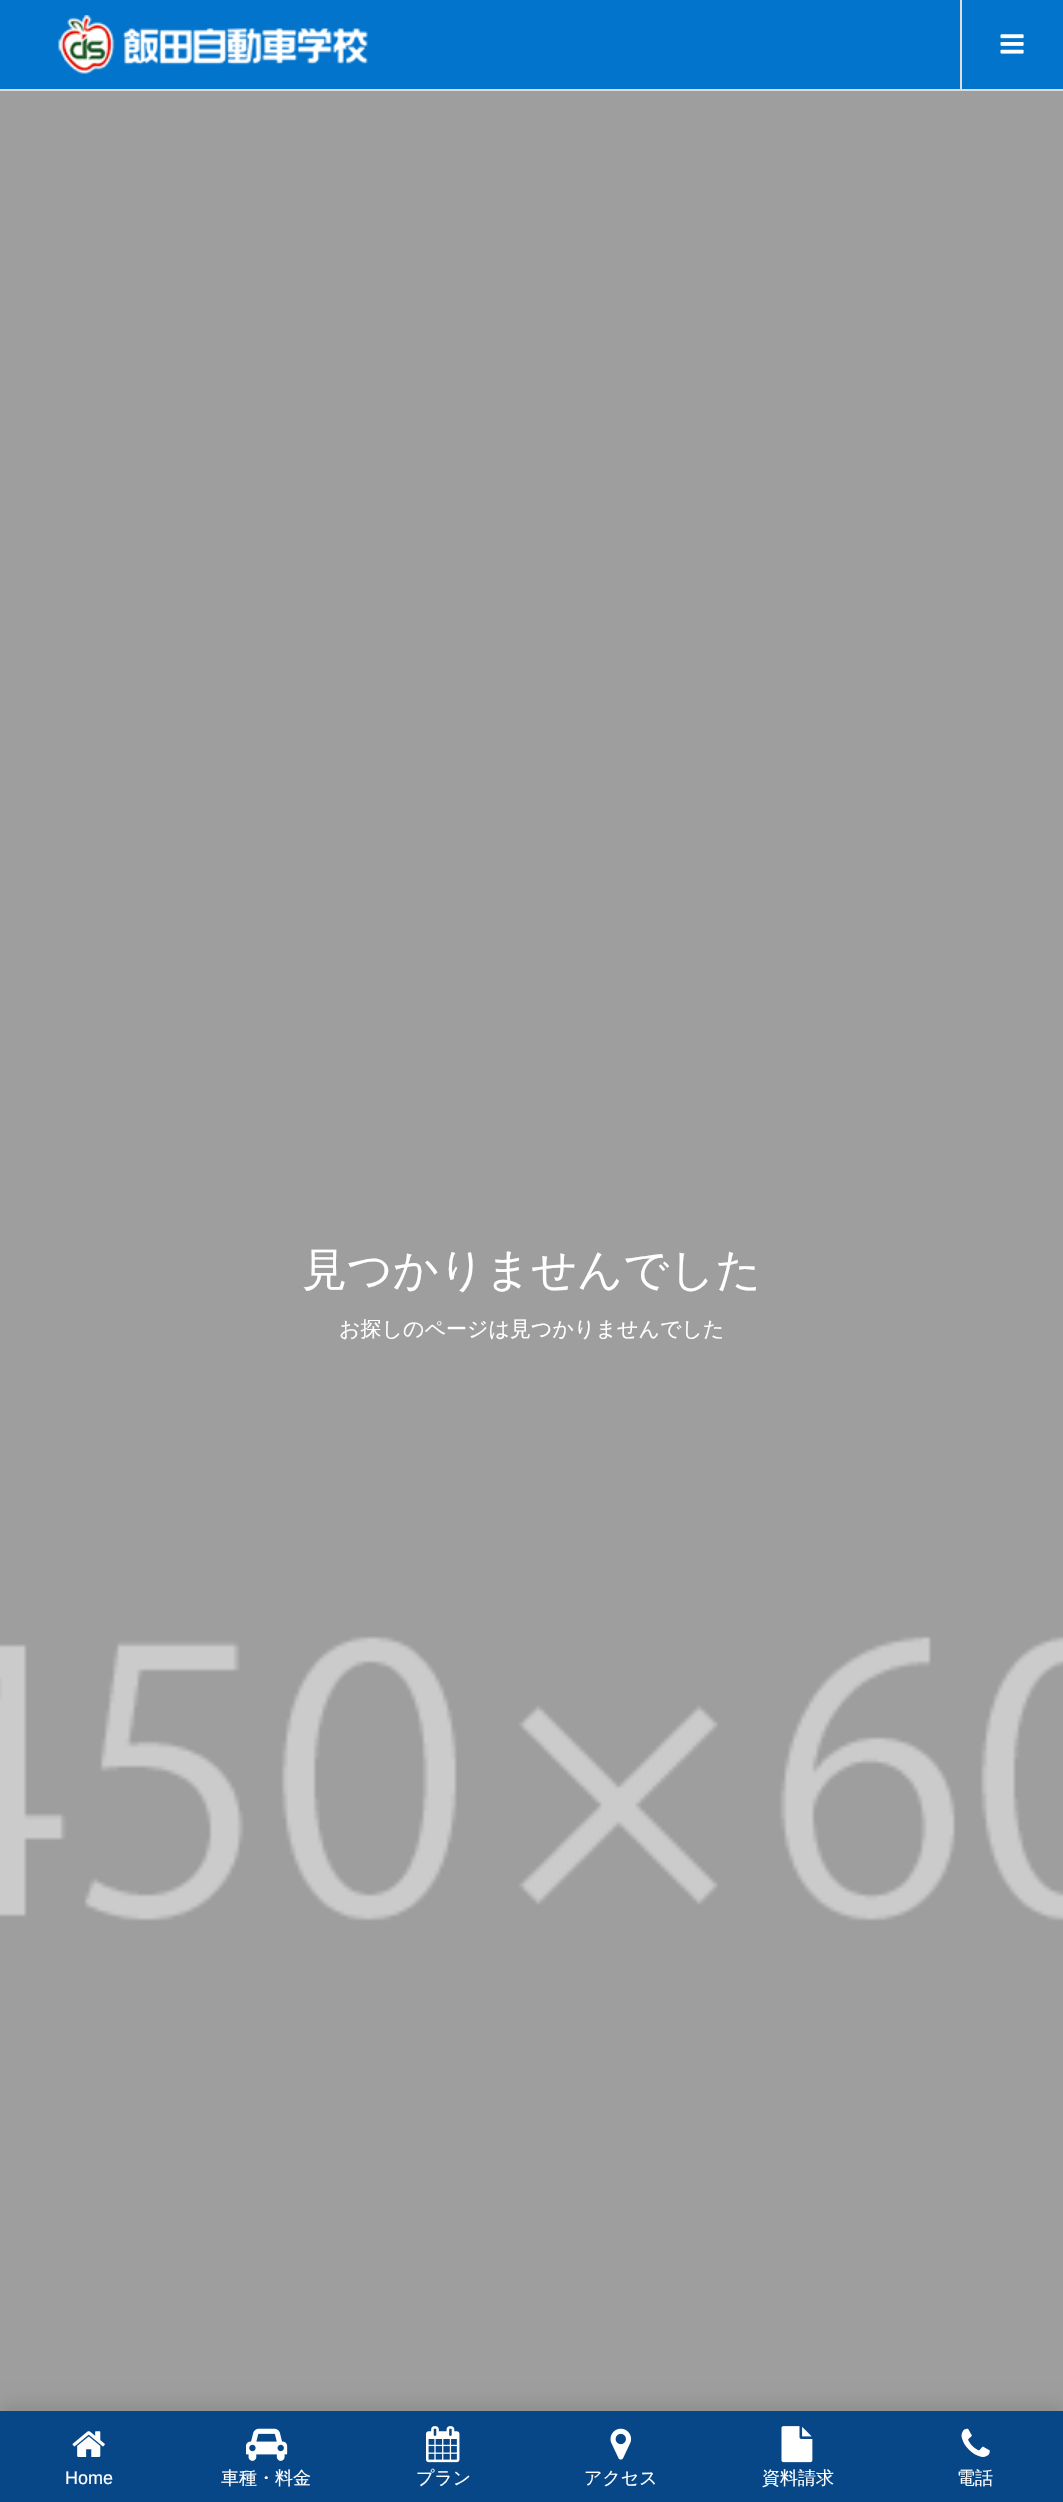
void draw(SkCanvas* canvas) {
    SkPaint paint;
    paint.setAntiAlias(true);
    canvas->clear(0xFFFFFFFF);
    paint.setColor(0xFF0374CC);
    canvas->drawRect(SkRect::MakeXYWH(0, 0, 1063, 89), paint);
    paint.setColor(0xFFDDDDDD);
    canvas->drawRect(SkRect::MakeXYWH(0, 89, 1063, 2), paint);
    canvas->drawImageRect(SkImages::DeferredFromEncodedData(SkData::MakeFromFileName("img1.png")), SkRect::MakeXYWH(58, 15, 310, 59), SkSamplingOptions());
    canvas->drawRect(SkRect::MakeXYWH(960, 0, 2, 89), paint);
    canvas->drawImageRect(SkImages::DeferredFromEncodedData(SkData::MakeFromFileName("img2.png")), SkRect::MakeXYWH(1000, 34, 24, 20), SkSamplingOptions());
    canvas->drawImageRect(SkImages::DeferredFromEncodedData(SkData::MakeFromFileName("img3.png")), SkRect::MakeXYWH(0, 91, 1063, 2320), SkSamplingOptions());
    SkFont font1(fontMgr->matchFamilyStyle("WenQuanYi Zen Hei", SkFontStyle(500, SkFontStyle::kNormal_Width, SkFontStyle::kUpright_Slant)), 45);
    font1.setSubpixel(true);
    paint.setColor(0xFFFFFFFF);
    canvas->drawString("見つかりませんでした", 302, 1285, font1, paint);
    SkFont font2(fontMgr->matchFamilyStyle("WenQuanYi Zen Hei", SkFontStyle(500, SkFontStyle::kNormal_Width, SkFontStyle::kUpright_Slant)), 21);
    font2.setSubpixel(true);
    canvas->drawString("お探しのページは見つかりませんでした", 339, 1336, font2, paint);
    paint.setColor(0x1A000000);
    paint.setMaskFilter(SkMaskFilter::MakeBlur(kNormal_SkBlurStyle, 7.5f));
    canvas->drawRect(SkRect::MakeXYWH(0, 2403, 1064, 92), paint);
    paint.setMaskFilter(nullptr);
    paint.setColor(0xFF084787);
    canvas->drawRect(SkRect::MakeXYWH(0, 2411, 1063, 91), paint);
    canvas->drawImageRect(SkImages::DeferredFromEncodedData(SkData::MakeFromFileName("img4.png")), SkRect::MakeXYWH(72, 2431, 33, 26), SkSamplingOptions());
    SkFont font3(fontMgr->matchFamilyStyle("Liberation Sans", SkFontStyle::Normal()), 18);
    font3.setSubpixel(true);
    paint.setColor(0xFFFFFFFF);
    canvas->drawString("Home", 65, 2484, font3, paint);
    canvas->drawImageRect(SkImages::DeferredFromEncodedData(SkData::MakeFromFileName("img5.png")), SkRect::MakeXYWH(246, 2428, 42, 33), SkSamplingOptions());
    SkFont font4(fontMgr->matchFamilyStyle("WenQuanYi Zen Hei", SkFontStyle(500, SkFontStyle::kNormal_Width, SkFontStyle::kUpright_Slant)), 18);
    font4.setSubpixel(true);
    canvas->drawString("車種・料金", 221, 2484, font4, paint);
    canvas->drawImageRect(SkImages::DeferredFromEncodedData(SkData::MakeFromFileName("img6.png")), SkRect::MakeXYWH(426, 2426, 34, 37), SkSamplingOptions());
    canvas->drawString("プラン", 416, 2484, font4, paint);
    canvas->drawImageRect(SkImages::DeferredFromEncodedData(SkData::MakeFromFileName("img7.png")), SkRect::MakeXYWH(610, 2428, 22, 32), SkSamplingOptions());
    canvas->drawString("アクセス", 584, 2484, font4, paint);
    canvas->drawImageRect(SkImages::DeferredFromEncodedData(SkData::MakeFromFileName("img8.png")), SkRect::MakeXYWH(781, 2426, 32, 37), SkSamplingOptions());
    canvas->drawString("資料請求", 762, 2484, font4, paint);
    canvas->drawImageRect(SkImages::DeferredFromEncodedData(SkData::MakeFromFileName("img9.png")), SkRect::MakeXYWH(961, 2428, 29, 29), SkSamplingOptions());
    canvas->drawString("電話", 957, 2484, font4, paint);
}
